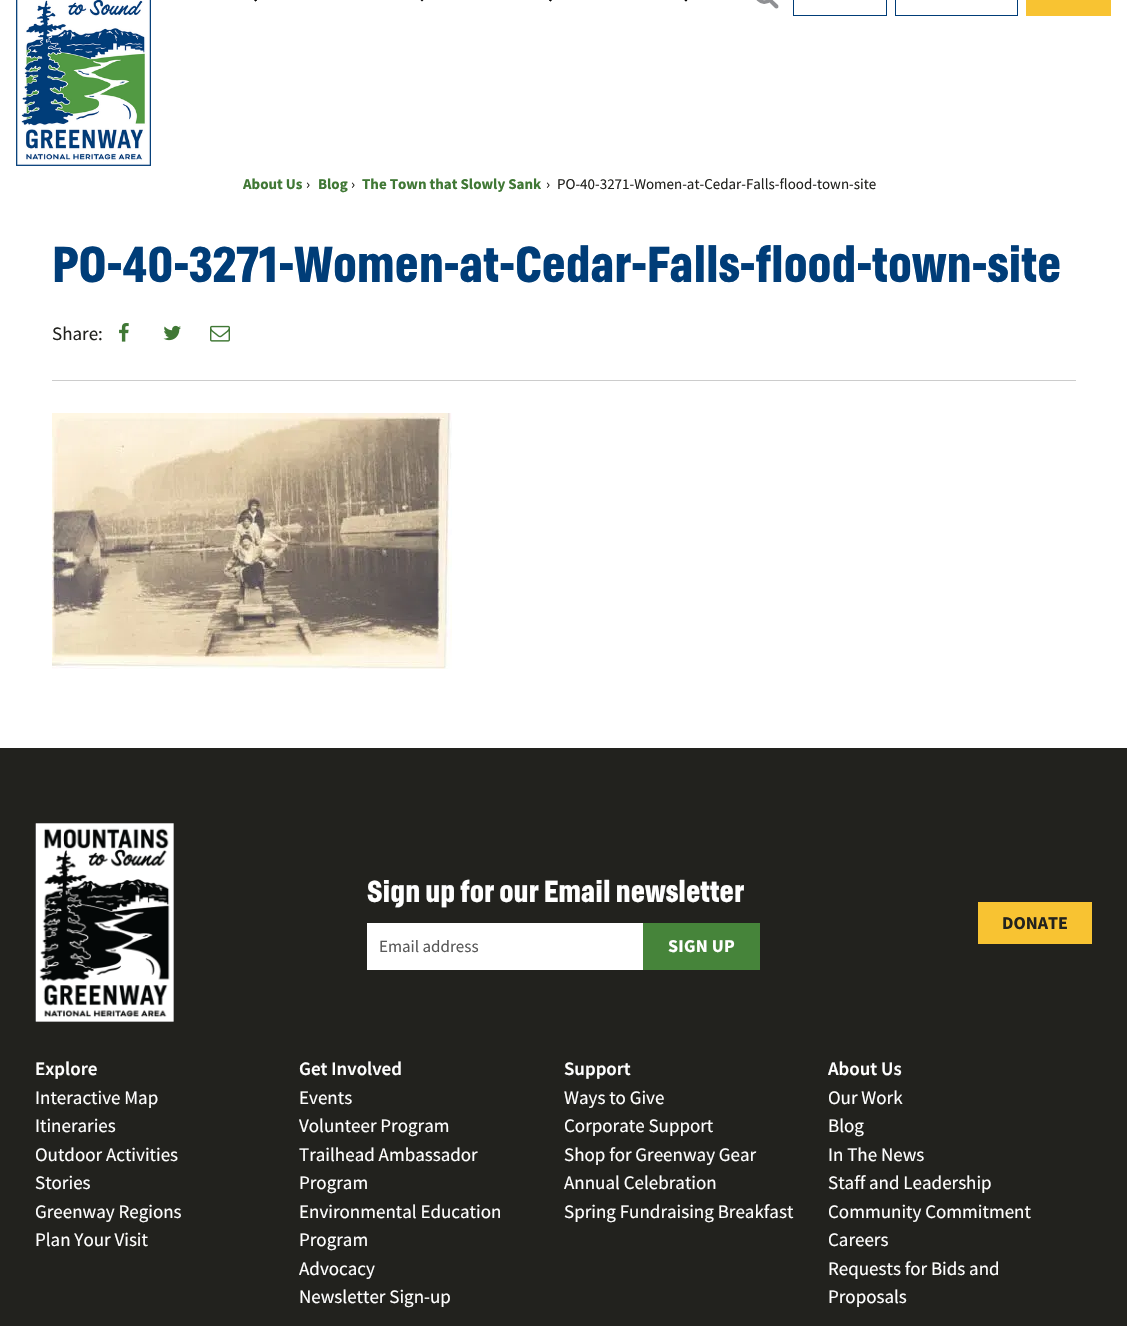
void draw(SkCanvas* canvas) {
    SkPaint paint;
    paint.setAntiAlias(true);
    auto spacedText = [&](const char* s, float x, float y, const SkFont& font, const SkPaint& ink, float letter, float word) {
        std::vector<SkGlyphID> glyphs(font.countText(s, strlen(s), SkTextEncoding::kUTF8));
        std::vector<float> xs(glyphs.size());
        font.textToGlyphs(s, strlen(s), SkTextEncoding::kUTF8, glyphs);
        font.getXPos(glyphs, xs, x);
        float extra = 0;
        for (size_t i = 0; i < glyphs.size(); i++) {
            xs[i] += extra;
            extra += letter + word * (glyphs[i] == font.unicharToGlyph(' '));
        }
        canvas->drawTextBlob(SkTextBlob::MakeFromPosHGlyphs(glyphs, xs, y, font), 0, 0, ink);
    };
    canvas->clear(0xFFFFFFFF);
    canvas->drawImageRect(SkImages::DeferredFromEncodedData(SkData::MakeFromFileName("img1.png")), SkRect::MakeXYWH(16, 0, 135, 166), SkSamplingOptions());
    paint.setColor(0xFF000000);
    canvas->drawPath(SkPathBuilder().moveTo(260, -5.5f).lineTo(261.5f, -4).lineTo(255.5f, 1.5f).lineTo(254.5f, 0).close().detach(), paint);
    canvas->drawPath(SkPathBuilder().moveTo(251.5f, -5.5f).lineTo(257, 0).lineTo(255.5f, 1.5f).lineTo(250, -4).close().detach(), paint);
    canvas->drawPath(SkPathBuilder().moveTo(418, -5.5f).lineTo(423.5f, 0).lineTo(422, 1.5f).lineTo(416.5f, -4).close().detach(), paint);
    canvas->drawPath(SkPathBuilder().moveTo(554.5f, -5.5f).lineTo(556, -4).lineTo(550.5f, 1.5f).lineTo(549, 0).close().detach(), paint);
    canvas->drawPath(SkPathBuilder().moveTo(546, -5.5f).lineTo(551.5f, 0).lineTo(550.5f, 1.5f).lineTo(544.5f, -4).close().detach(), paint);
    canvas->drawPath(SkPathBuilder().moveTo(690, -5.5f).lineTo(691.5f, -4).lineTo(686, 1.5f).lineTo(684.5f, 0).close().detach(), paint);
    canvas->drawPath(SkPathBuilder().moveTo(681.5f, -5.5f).lineTo(687, 0).lineTo(686, 1.5f).lineTo(680, -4).close().detach(), paint);
    paint.setStyle(SkPaint::kStroke_Style);
    paint.setStrokeWidth(4);
    paint.setColor(0xFF8F9093);
    canvas->drawPath(SkPathBuilder().moveTo(758.5f, -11.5f).cubicTo(766, -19, 777.5f, -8, 770, -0.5f).cubicTo(762.5f, 7, 751.5f, -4, 758.5f, -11.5f).close().detach(), paint);
    paint.setStyle(SkPaint::kFill_Style);
    canvas->drawPath(SkPathBuilder().moveTo(770.5f, -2).lineTo(778, 5).cubicTo(778.5f, 6, 778.5f, 7, 778, 8).cubicTo(777, 8.5f, 775.5f, 8.5f, 775, 8).lineTo(768, 1).close().detach(), paint);
    paint.setStyle(SkPaint::kStroke_Style);
    paint.setStrokeWidth(1);
    paint.setColor(0xFF003D78);
    canvas->drawRect(SkRect::MakeXYWH(793.5f, -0.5f, 93, 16), paint);
    canvas->drawRect(SkRect::MakeXYWH(895.5f, -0.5f, 122, 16), paint);
    paint.setStyle(SkPaint::kFill_Style);
    paint.setColor(0xFFF8C332);
    canvas->drawRect(SkRect::MakeXYWH(1026, 0, 85, 16), paint);
    SkFont font1(fontMgr->matchFamilyStyle("Source Sans Pro", SkFontStyle::Bold()), 15);
    font1.setSubpixel(true);
    paint.setColor(0xFF407835);
    canvas->drawString("About Us", 243, 189, font1, paint);
    SkFont font2(fontMgr->matchFamilyStyle("Source Sans Pro", SkFontStyle::Normal()), 15);
    font2.setSubpixel(true);
    paint.setColor(0xFF22221E);
    canvas->drawString("›", 306, 189, font2, paint);
    paint.setColor(0xFF407835);
    canvas->drawString("Blog", 318, 189, font1, paint);
    paint.setColor(0xFF22221E);
    canvas->drawString("›", 351, 189, font2, paint);
    paint.setColor(0xFF407835);
    canvas->drawString("The Town that Slowly Sank", 362, 189, font1, paint);
    paint.setColor(0xFF22221E);
    canvas->drawString("›", 546, 189, font2, paint);
    canvas->drawString("PO-40-3271-Women-at-Cedar-Falls-flood-town-site", 557, 189, font2, paint);
    SkFont font3(fontMgr->matchFamilyStyle("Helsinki", SkFontStyle::Bold()), 50);
    font3.setSubpixel(true);
    paint.setColor(0xFF003D78);
    canvas->drawString("PO-40-3271-Women-at-Cedar-Falls-flood-town-site", 52, 282, font3, paint);
    paint.setColor(0xFFCCCCCC);
    canvas->drawRect(SkRect::MakeXYWH(52, 380, 1024, 1), paint);
    SkFont font4(fontMgr->matchFamilyStyle("Source Sans Pro", SkFontStyle::Normal()), 19);
    font4.setSubpixel(true);
    paint.setColor(0xFF22221E);
    canvas->drawString("Share:", 52, 340, font4, paint);
    canvas->drawImageRect(SkImages::DeferredFromEncodedData(SkData::MakeFromFileName("img2.png")), SkRect::MakeXYWH(119, 323, 10, 19), SkSamplingOptions());
    canvas->drawImageRect(SkImages::DeferredFromEncodedData(SkData::MakeFromFileName("img3.png")), SkRect::MakeXYWH(163, 325, 18, 16), SkSamplingOptions());
    canvas->drawImageRect(SkImages::DeferredFromEncodedData(SkData::MakeFromFileName("img4.png")), SkRect::MakeXYWH(210, 325, 20, 17), SkSamplingOptions());
    canvas->drawImageRect(SkImages::DeferredFromEncodedData(SkData::MakeFromFileName("img5.png")), SkRect::MakeXYWH(52, 413, 400, 256), SkSamplingOptions());
    canvas->drawRect(SkRect::MakeXYWH(0, 748, 1127, 578), paint);
    canvas->drawImageRect(SkImages::DeferredFromEncodedData(SkData::MakeFromFileName("img6.png")), SkRect::MakeXYWH(35, 823, 139, 199), SkSamplingOptions());
    SkFont font5(fontMgr->matchFamilyStyle("Helsinki", SkFontStyle::Bold()), 30);
    font5.setSubpixel(true);
    paint.setColor(0xFFFFFFFF);
    canvas->drawString("Sign up for our Email newsletter", 367, 902, font5, paint);
    canvas->drawRect(SkRect::MakeXYWH(367, 923, 276, 47), paint);
    SkFont font6(fontMgr->matchFamilyStyle("Source Sans Pro", SkFontStyle::Normal()), 17);
    font6.setSubpixel(true);
    paint.setColor(0xFF595959);
    canvas->drawString("Email address", 379, 952, font6, paint);
    paint.setColor(0xFF46843A);
    canvas->drawRect(SkRect::MakeXYWH(643, 923, 117, 47), paint);
    SkFont font7(fontMgr->matchFamilyStyle("Source Sans Pro", SkFontStyle::Bold()), 18);
    font7.setSubpixel(true);
    paint.setColor(0xFFFFFFFF);
    spacedText("SIGN UP", 668, 952, font7, paint, 0.25f, 0);
    paint.setColor(0xFFF8C332);
    canvas->drawRect(SkRect::MakeXYWH(978, 902, 114, 42), paint);
    paint.setColor(0xFF22221E);
    canvas->drawString("DONATE", 1002, 929, font7, paint);
    SkFont font8(fontMgr->matchFamilyStyle("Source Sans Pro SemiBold", SkFontStyle(600, SkFontStyle::kNormal_Width, SkFontStyle::kUpright_Slant)), 19);
    font8.setSubpixel(true);
    paint.setColor(0xFFFFFFFF);
    canvas->drawString("Explore", 35, 1075, font8, paint);
    canvas->drawString("Interactive Map", 35, 1104, font4, paint);
    canvas->drawString("Itineraries", 35, 1132, font4, paint);
    canvas->drawString("Outdoor Activities", 35, 1161, font4, paint);
    canvas->drawString("Stories", 35, 1189, font4, paint);
    canvas->drawString("Greenway Regions", 35, 1218, font4, paint);
    canvas->drawString("Plan Your Visit", 35, 1246, font4, paint);
    canvas->drawString("Get Involved", 299, 1075, font8, paint);
    canvas->drawString("Events", 299, 1104, font4, paint);
    canvas->drawString("Volunteer Program", 299, 1132, font4, paint);
    canvas->drawString("Trailhead Ambassador", 299, 1161, font4, paint);
    canvas->drawString("Program", 299, 1189, font4, paint);
    canvas->drawString("Environmental Education", 299, 1218, font4, paint);
    canvas->drawString("Program", 299, 1246, font4, paint);
    canvas->drawString("Advocacy", 299, 1275, font4, paint);
    canvas->drawString("Newsletter Sign-up", 299, 1303, font4, paint);
    canvas->drawString("Support", 564, 1075, font8, paint);
    canvas->drawString("Ways to Give", 564, 1104, font4, paint);
    canvas->drawString("Corporate Support", 564, 1132, font4, paint);
    canvas->drawString("Shop for Greenway Gear", 564, 1161, font4, paint);
    canvas->drawString("Annual Celebration", 564, 1189, font4, paint);
    canvas->drawString("Spring Fundraising Breakfast", 564, 1218, font4, paint);
    canvas->drawString("About Us", 828, 1075, font8, paint);
    canvas->drawString("Our Work", 828, 1104, font4, paint);
    canvas->drawString("Blog", 828, 1132, font4, paint);
    canvas->drawString("In The News", 828, 1161, font4, paint);
    canvas->drawString("Staff and Leadership", 828, 1189, font4, paint);
    canvas->drawString("Community Commitment", 828, 1218, font4, paint);
    canvas->drawString("Careers", 828, 1246, font4, paint);
    canvas->drawString("Requests for Bids and", 828, 1275, font4, paint);
    canvas->drawString("Proposals", 828, 1303, font4, paint);
}
